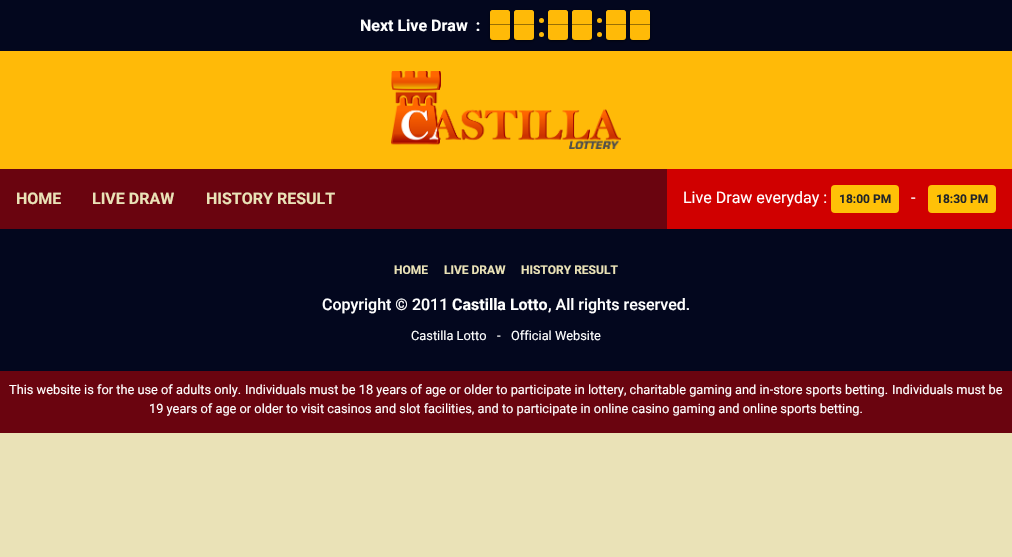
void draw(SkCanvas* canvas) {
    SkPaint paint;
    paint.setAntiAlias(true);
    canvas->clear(0xFFEAE2B7);
    paint.setColor(0xFF03071E);
    canvas->drawRect(SkRect::MakeXYWH(0, 0, 1012, 51), paint);
    SkFont font1(fontMgr->matchFamilyStyle("Roboto", SkFontStyle::Bold()), 16);
    font1.setSubpixel(true);
    paint.setColor(0xFFFFFFFF);
    canvas->drawString("Next Live Draw :", 360, 31, font1, paint);
    paint.setColor(0x99000000);
    paint.setMaskFilter(SkMaskFilter::MakeBlur(kNormal_SkBlurStyle, 1.5f));
    canvas->drawRoundRect(SkRect::MakeXYWH(490, 11, 20, 30), 3, 3, paint);
    paint.setMaskFilter(nullptr);
    paint.setColor(0xFFFFBA08);
    canvas->drawRoundRect(SkRect::MakeXYWH(490, 10, 20, 30), 3, 3, paint);
    paint.setColor(0x99000000);
    paint.setMaskFilter(SkMaskFilter::MakeBlur(kNormal_SkBlurStyle, 1.5f));
    canvas->drawRoundRect(SkRect::MakeXYWH(514, 11, 20, 30), 3, 3, paint);
    paint.setMaskFilter(nullptr);
    paint.setColor(0xFFFFBA08);
    canvas->drawPath(SkPathBuilder().moveTo(493, 10).lineTo(507, 10).cubicTo(508.5f, 10, 510, 11.5f, 510, 13).lineTo(510, 25).lineTo(490, 25).lineTo(490, 13).cubicTo(490, 11.5f, 491.5f, 10, 493, 10).close().detach(), paint);
    paint.setColor(0x66000000);
    canvas->drawRect(SkRect::MakeXYWH(490, 24, 20, 1), paint);
    paint.setColor(0xFFFFBA08);
    canvas->drawRoundRect(SkRect::MakeXYWH(514, 10, 20, 30), 3, 3, paint);
    canvas->drawPath(SkPathBuilder().moveTo(517, 10).lineTo(531, 10).cubicTo(532.5f, 10, 534, 11.5f, 534, 13).lineTo(534, 25).lineTo(514, 25).lineTo(514, 13).cubicTo(514, 11.5f, 515.5f, 10, 517, 10).close().detach(), paint);
    paint.setColor(0x66000000);
    canvas->drawRect(SkRect::MakeXYWH(514, 24, 20, 1), paint);
    paint.setColor(0x80000000);
    paint.setMaskFilter(SkMaskFilter::MakeBlur(kNormal_SkBlurStyle, 1));
    canvas->drawRoundRect(SkRect::MakeXYWH(539, 18, 5, 5), 2.5f, 2.5f, paint);
    paint.setMaskFilter(nullptr);
    paint.setColor(0xFFFFBA08);
    canvas->drawCircle(541.5f, 20.5f, 2.5f, paint);
    paint.setColor(0x80000000);
    paint.setMaskFilter(SkMaskFilter::MakeBlur(kNormal_SkBlurStyle, 1));
    canvas->drawRoundRect(SkRect::MakeXYWH(539, 32, 5, 5), 2.5f, 2.5f, paint);
    paint.setMaskFilter(nullptr);
    paint.setColor(0xFFFFBA08);
    canvas->drawCircle(541.5f, 34.5f, 2.5f, paint);
    paint.setColor(0x99000000);
    paint.setMaskFilter(SkMaskFilter::MakeBlur(kNormal_SkBlurStyle, 1.5f));
    canvas->drawRoundRect(SkRect::MakeXYWH(548, 11, 20, 30), 3, 3, paint);
    paint.setMaskFilter(nullptr);
    paint.setColor(0xFFFFBA08);
    canvas->drawRoundRect(SkRect::MakeXYWH(548, 10, 20, 30), 3, 3, paint);
    paint.setColor(0x99000000);
    paint.setMaskFilter(SkMaskFilter::MakeBlur(kNormal_SkBlurStyle, 1.5f));
    canvas->drawRoundRect(SkRect::MakeXYWH(572, 11, 20, 30), 3, 3, paint);
    paint.setMaskFilter(nullptr);
    paint.setColor(0xFFFFBA08);
    canvas->drawPath(SkPathBuilder().moveTo(551, 10).lineTo(565, 10).cubicTo(566.5f, 10, 568, 11.5f, 568, 13).lineTo(568, 25).lineTo(548, 25).lineTo(548, 13).cubicTo(548, 11.5f, 549.5f, 10, 551, 10).close().detach(), paint);
    paint.setColor(0x66000000);
    canvas->drawRect(SkRect::MakeXYWH(548, 24, 20, 1), paint);
    paint.setColor(0xFFFFBA08);
    canvas->drawRoundRect(SkRect::MakeXYWH(572, 10, 20, 30), 3, 3, paint);
    canvas->drawPath(SkPathBuilder().moveTo(575, 10).lineTo(589, 10).cubicTo(590.5f, 10, 592, 11.5f, 592, 13).lineTo(592, 25).lineTo(572, 25).lineTo(572, 13).cubicTo(572, 11.5f, 573.5f, 10, 575, 10).close().detach(), paint);
    paint.setColor(0x66000000);
    canvas->drawRect(SkRect::MakeXYWH(572, 24, 20, 1), paint);
    paint.setColor(0x80000000);
    paint.setMaskFilter(SkMaskFilter::MakeBlur(kNormal_SkBlurStyle, 1));
    canvas->drawRoundRect(SkRect::MakeXYWH(597, 18, 5, 5), 2.5f, 2.5f, paint);
    paint.setMaskFilter(nullptr);
    paint.setColor(0xFFFFBA08);
    canvas->drawCircle(599.5f, 20.5f, 2.5f, paint);
    paint.setColor(0x80000000);
    paint.setMaskFilter(SkMaskFilter::MakeBlur(kNormal_SkBlurStyle, 1));
    canvas->drawRoundRect(SkRect::MakeXYWH(597, 32, 5, 5), 2.5f, 2.5f, paint);
    paint.setMaskFilter(nullptr);
    paint.setColor(0xFFFFBA08);
    canvas->drawCircle(599.5f, 34.5f, 2.5f, paint);
    paint.setColor(0x99000000);
    paint.setMaskFilter(SkMaskFilter::MakeBlur(kNormal_SkBlurStyle, 1.5f));
    canvas->drawRoundRect(SkRect::MakeXYWH(606, 11, 20, 30), 3, 3, paint);
    paint.setMaskFilter(nullptr);
    paint.setColor(0xFFFFBA08);
    canvas->drawRoundRect(SkRect::MakeXYWH(606, 10, 20, 30), 3, 3, paint);
    paint.setColor(0x99000000);
    paint.setMaskFilter(SkMaskFilter::MakeBlur(kNormal_SkBlurStyle, 1.5f));
    canvas->drawRoundRect(SkRect::MakeXYWH(630, 11, 20, 30), 3, 3, paint);
    paint.setMaskFilter(nullptr);
    paint.setColor(0xFFFFBA08);
    canvas->drawPath(SkPathBuilder().moveTo(609, 10).lineTo(623, 10).cubicTo(624.5f, 10, 626, 11.5f, 626, 13).lineTo(626, 25).lineTo(606, 25).lineTo(606, 13).cubicTo(606, 11.5f, 607.5f, 10, 609, 10).close().detach(), paint);
    paint.setColor(0x66000000);
    canvas->drawRect(SkRect::MakeXYWH(606, 24, 20, 1), paint);
    paint.setColor(0xFFFFBA08);
    canvas->drawRoundRect(SkRect::MakeXYWH(630, 10, 20, 30), 3, 3, paint);
    canvas->drawPath(SkPathBuilder().moveTo(633, 10).lineTo(647, 10).cubicTo(648.5f, 10, 650, 11.5f, 650, 13).lineTo(650, 25).lineTo(630, 25).lineTo(630, 13).cubicTo(630, 11.5f, 631.5f, 10, 633, 10).close().detach(), paint);
    paint.setColor(0x66000000);
    canvas->drawRect(SkRect::MakeXYWH(630, 24, 20, 1), paint);
    paint.setColor(0xFFFFBA08);
    canvas->drawRect(SkRect::MakeXYWH(0, 51, 1012, 118), paint);
    canvas->drawImageRect(SkImages::DeferredFromEncodedData(SkData::MakeFromFileName("img1.png")), SkRect::MakeXYWH(391, 71, 230, 78), SkSamplingOptions());
    paint.setColor(0xFF6A040F);
    canvas->drawRect(SkRect::MakeXYWH(0, 169, 667, 60), paint);
    paint.setColor(0xFFEAE2B7);
    canvas->drawString("HOME", 16, 204, font1, paint);
    canvas->drawString("LIVE DRAW", 92, 204, font1, paint);
    canvas->drawString("HISTORY RESULT", 206, 204, font1, paint);
    paint.setColor(0xFFD00000);
    canvas->drawRect(SkRect::MakeXYWH(667, 169, 345, 60), paint);
    SkFont font2(fontMgr->matchFamilyStyle("Roboto", SkFontStyle::Normal()), 16);
    font2.setSubpixel(true);
    paint.setColor(0xFFFFFFFF);
    canvas->drawString("Live Draw everyday :", 683, 203, font2, paint);
    paint.setColor(0xFFFFC107);
    canvas->drawRoundRect(SkRect::MakeXYWH(831, 185, 68, 28), 4, 4, paint);
    SkFont font3(fontMgr->matchFamilyStyle("Roboto", SkFontStyle::Bold()), 12);
    font3.setSubpixel(true);
    paint.setColor(0xFF212529);
    canvas->drawString("18:00 PM", 839, 203, font3, paint);
    paint.setColor(0xFFFFFFFF);
    canvas->drawString("-", 911, 203, font2, paint);
    paint.setColor(0xFFFFC107);
    canvas->drawRoundRect(SkRect::MakeXYWH(928, 185, 68, 28), 4, 4, paint);
    paint.setColor(0xFF212529);
    canvas->drawString("18:30 PM", 936, 203, font3, paint);
    paint.setColor(0xFF03071E);
    canvas->drawRect(SkRect::MakeXYWH(0, 229, 1012, 142), paint);
    paint.setColor(0xFFEAE2B7);
    canvas->drawString("HOME", 394, 274, font3, paint);
    canvas->drawString("LIVE DRAW", 444, 274, font3, paint);
    canvas->drawString("HISTORY RESULT", 521, 274, font3, paint);
    SkFont font4(fontMgr->matchFamilyStyle("Roboto", SkFontStyle(500, SkFontStyle::kNormal_Width, SkFontStyle::kUpright_Slant)), 16);
    font4.setSubpixel(true);
    paint.setColor(0xFFFFFFFF);
    canvas->drawString("Copyright © 2011", 322, 310, font4, paint);
    canvas->drawString("Castilla Lotto", 452, 310, font1, paint);
    canvas->drawString(", All rights reserved.", 548, 310, font4, paint);
    SkFont font5(fontMgr->matchFamilyStyle("Roboto", SkFontStyle::Normal()), 12.8f);
    font5.setSubpixel(true);
    canvas->drawString("Castilla Lotto", 411, 340, font5, paint);
    canvas->drawString("-", 497, 340, font5, paint);
    canvas->drawString("Official Website", 511, 340, font5, paint);
    paint.setColor(0xFF6A040F);
    canvas->drawRect(SkRect::MakeXYWH(0, 371, 1012, 62), paint);
    paint.setColor(0xFFFFFFFF);
    canvas->drawString("This website is for the use of adults only.", 9, 394, font5, paint);
    canvas->drawString("Individuals must be 18 years of age or older to participate in lottery, charitable gaming and in-store sports betting.", 245, 394, font5, paint);
    canvas->drawString("Individuals must be", 892, 394, font5, paint);
    canvas->drawString("19 years of age or older to visit casinos and slot facilities, and to participate in online casino gaming and online sports betting.", 149, 413, font5, paint);
}
